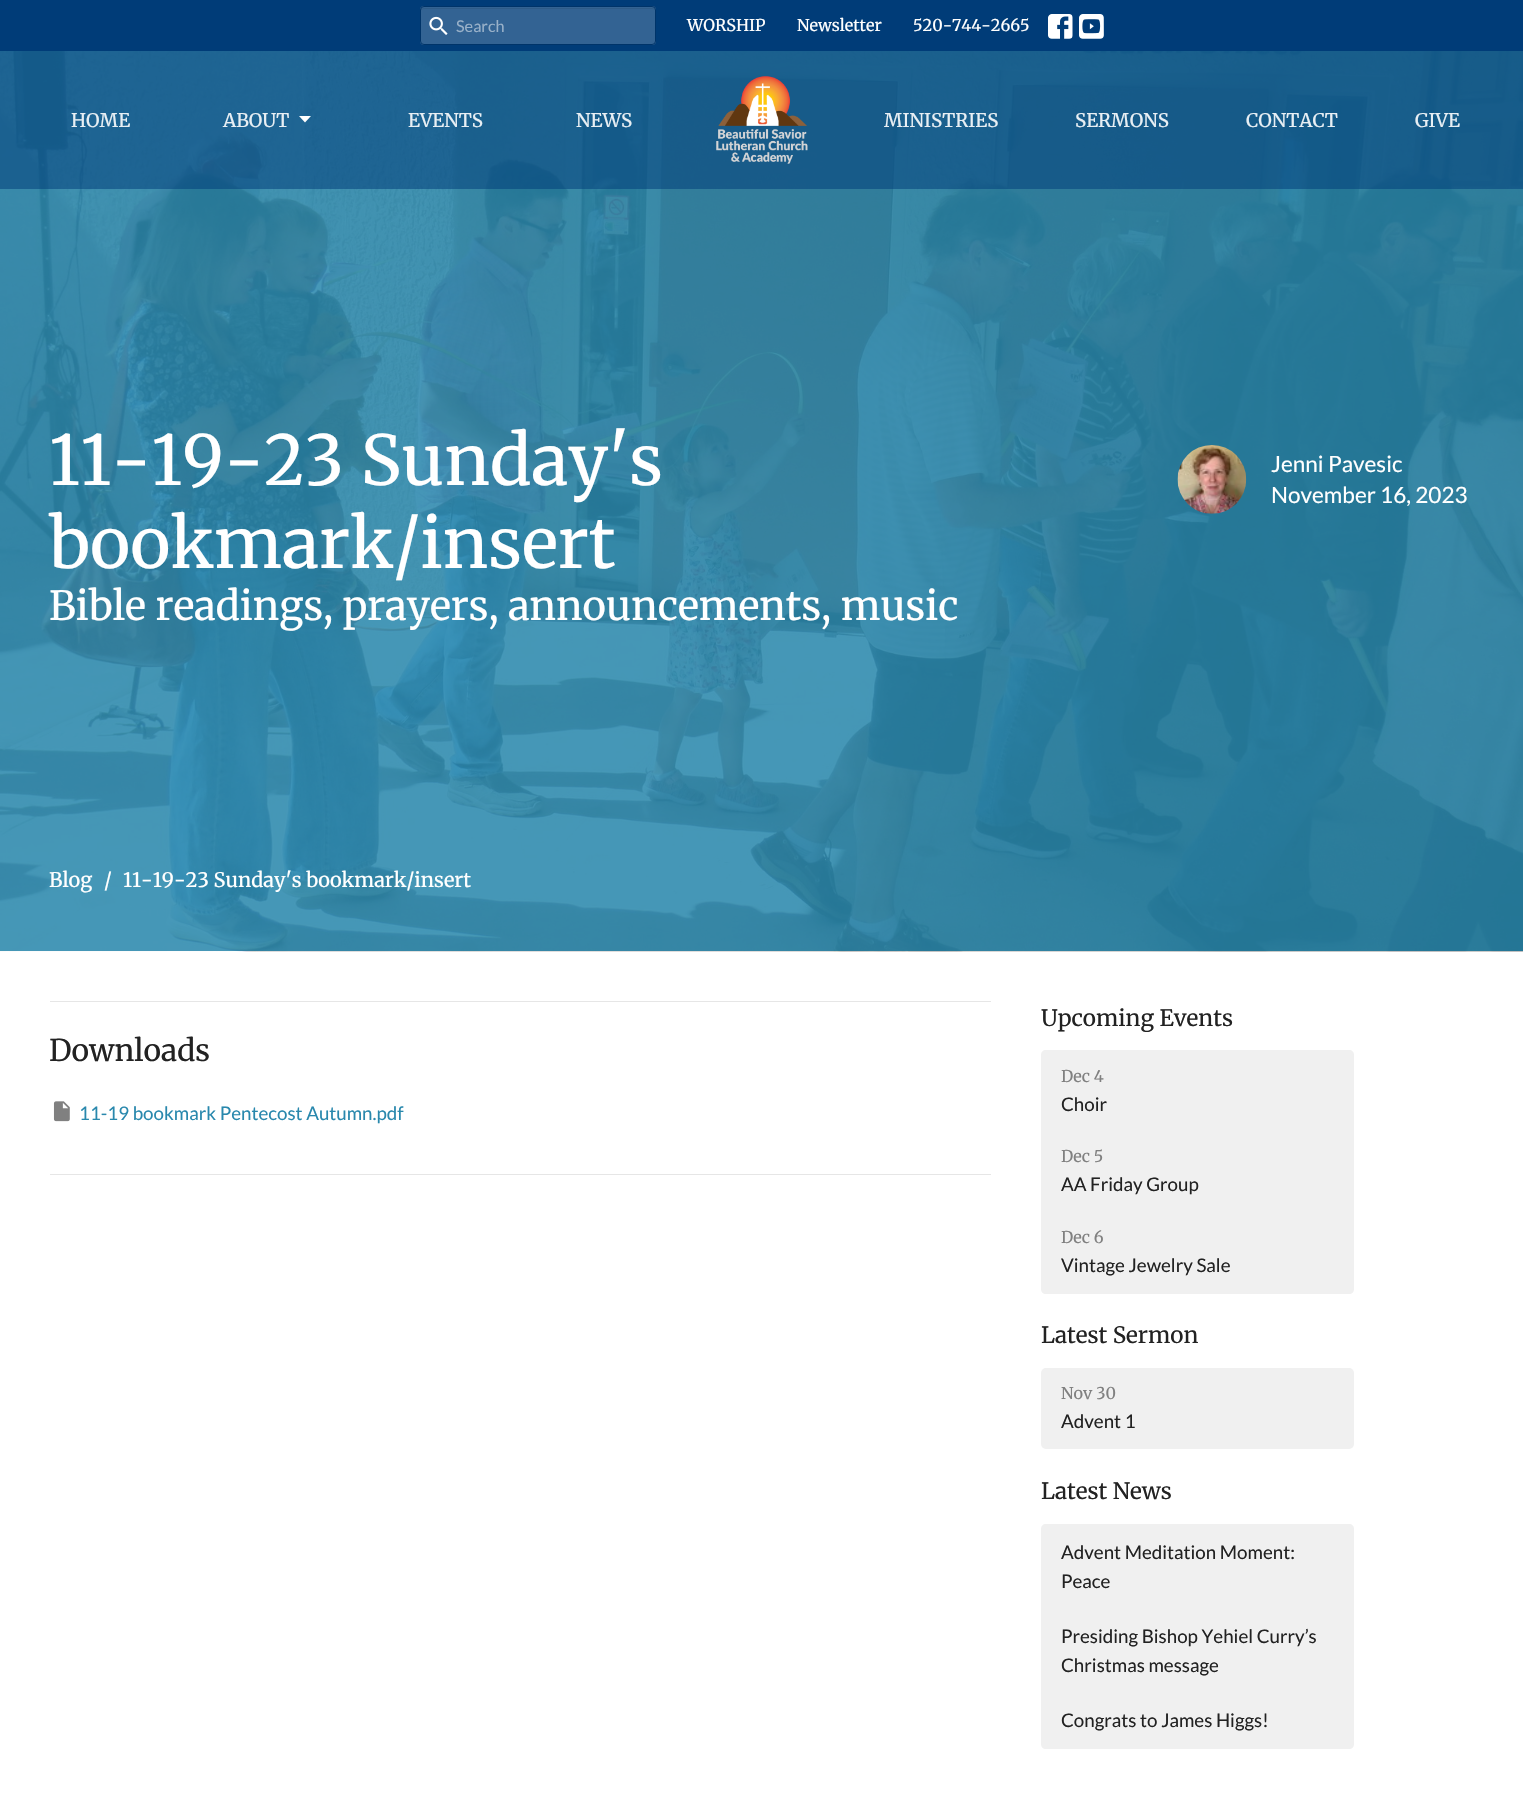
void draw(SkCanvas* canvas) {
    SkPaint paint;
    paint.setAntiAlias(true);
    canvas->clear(0xFFFFFFFF);
    paint.setColor(0xFF003C78);
    canvas->drawRect(SkRect::MakeXYWH(0, 0, 1523, 51), paint);
    paint.setColor(0xFF336393);
    canvas->drawRoundRect(SkRect::MakeXYWH(420, 6, 236, 39), 4, 4, paint);
    paint.setColor(0xFF2F5C88);
    canvas->drawPath(SkPathBuilder().moveTo(424, 9).lineTo(652, 9).cubicTo(654, 9, 655, 10, 655, 11).cubicTo(655, 9, 654, 8, 652, 8).lineTo(424, 8).lineTo(421, 9).lineTo(421, 11).cubicTo(421, 10, 422, 9, 424, 9).close().detach(), paint);
    paint.setStyle(SkPaint::kStroke_Style);
    paint.setStrokeWidth(1);
    paint.setColor(0xFF003469);
    canvas->drawRoundRect(SkRect::MakeXYWH(420.5f, 6.5f, 235, 38), 3.5f, 3.5f, paint);
    canvas->drawImageRect(SkImages::DeferredFromEncodedData(SkData::MakeFromFileName("img1.png")), SkRect::MakeXYWH(429, 16, 19, 19), SkSamplingOptions());
    SkFont font1(fontMgr->matchFamilyStyle("Lato", SkFontStyle::Normal()), 16.25f);
    font1.setSubpixel(true);
    paint.setStyle(SkPaint::kFill_Style);
    paint.setColor(0xFF99B1C9);
    canvas->drawString("Search", 456, 32, font1, paint);
    SkFont font2(fontMgr->matchFamilyStyle("Merriweather", SkFontStyle::Normal()), 16.25f);
    font2.setSubpixel(true);
    paint.setColor(0xFFFFFFFF);
    canvas->drawString("WORSHIP", 687, 31, font2, paint);
    canvas->drawString("Newsletter", 797, 31, font2, paint);
    canvas->drawString("520-744-2665", 913, 31, font2, paint);
    canvas->drawImageRect(SkImages::DeferredFromEncodedData(SkData::MakeFromFileName("img2.png")), SkRect::MakeXYWH(1048, 14, 25, 25), SkSamplingOptions());
    canvas->drawImageRect(SkImages::DeferredFromEncodedData(SkData::MakeFromFileName("img3.png")), SkRect::MakeXYWH(1079, 14, 25, 25), SkSamplingOptions());
    canvas->drawImageRect(SkImages::DeferredFromEncodedData(SkData::MakeFromFileName("img5.png")), SkRect::MakeXYWH(0, 51, 1523, 901), SkSamplingOptions());
    paint.setColor(0x87003C78);
    canvas->drawRect(SkRect::MakeXYWH(0, 51, 1523, 138), paint);
    SkFont font3(fontMgr->matchFamilyStyle("Merriweather", SkFontStyle::Normal()), 18.75f);
    font3.setSubpixel(true);
    paint.setColor(0xFFE8EFF4);
    canvas->drawString("HOME", 71, 127, font3, paint);
    canvas->drawString("ABOUT", 223, 127, font3, paint);
    paint.setColor(0xFFFFFFFF);
    canvas->drawPath(SkPathBuilder().moveTo(299, 116).lineTo(305, 122.5f).lineTo(311, 116).close().detach(), paint);
    paint.setColor(0xFFE8EFF4);
    canvas->drawString("EVENTS", 408, 127, font3, paint);
    canvas->drawString("NEWS", 576, 127, font3, paint);
    canvas->drawImageRect(SkImages::DeferredFromEncodedData(SkData::MakeFromFileName("img4.png")), SkRect::MakeXYWH(716, 76, 92, 88), SkSamplingOptions());
    canvas->drawString("MINISTRIES", 884, 127, font3, paint);
    canvas->drawString("SERMONS", 1075, 127, font3, paint);
    canvas->drawString("CONTACT", 1246, 127, font3, paint);
    canvas->drawString("GIVE", 1415, 127, font3, paint);
    SkFont font4(fontMgr->matchFamilyStyle("Merriweather", SkFontStyle::Normal()), 68.75f);
    font4.setSubpixel(true);
    paint.setColor(0xFFFFFFFF);
    canvas->drawString("11-19-23 Sunday's", 49, 485, font4, paint);
    canvas->drawString("bookmark/insert", 49, 568, font4, paint);
    SkFont font5(fontMgr->matchFamilyStyle("Merriweather", SkFontStyle::Normal()), 40);
    font5.setSubpixel(true);
    canvas->drawString("Bible readings, prayers, announcements, music", 49, 620, font5, paint);
    canvas->drawImageRect(SkImages::DeferredFromEncodedData(SkData::MakeFromFileName("img6.png")), SkRect::MakeXYWH(1177, 445, 70, 69), SkSamplingOptions());
    SkFont font6(fontMgr->matchFamilyStyle("Lato", SkFontStyle::Normal()), 22.5f);
    font6.setSubpixel(true);
    canvas->drawString("Jenni Pavesic", 1271, 472, font6, paint);
    canvas->drawString("November 16, 2023", 1271, 503, font6, paint);
    SkFont font7(fontMgr->matchFamilyStyle("Merriweather", SkFontStyle::Normal()), 20);
    font7.setSubpixel(true);
    canvas->drawString("Blog", 49, 887, font7, paint);
    canvas->drawString("/", 104, 887, font7, paint);
    canvas->drawString("11-19-23 Sunday's bookmark/insert", 123, 887, font7, paint);
    paint.setColor(0xFFE6E6E6);
    canvas->drawRect(SkRect::MakeXYWH(50, 1001, 941, 1), paint);
    canvas->drawRect(SkRect::MakeXYWH(50, 1174, 941, 1), paint);
    SkFont font8(fontMgr->matchFamilyStyle("Merriweather", SkFontStyle::Normal()), 30);
    font8.setSubpixel(true);
    paint.setColor(0xFF222222);
    canvas->drawString("Downloads", 49, 1061, font8, paint);
    canvas->drawImageRect(SkImages::DeferredFromEncodedData(SkData::MakeFromFileName("img7.png")), SkRect::MakeXYWH(53, 1101, 17, 21), SkSamplingOptions());
    SkFont font9(fontMgr->matchFamilyStyle("Lato", SkFontStyle::Normal()), 18.75f);
    font9.setSubpixel(true);
    paint.setColor(0xFF2988AD);
    canvas->drawString("11-19 bookmark Pentecost Autumn.pdf", 79, 1120, font9, paint);
    SkFont font10(fontMgr->matchFamilyStyle("Merriweather", SkFontStyle::Normal()), 22.5f);
    font10.setSubpixel(true);
    paint.setColor(0xFF222222);
    canvas->drawString("Upcoming Events", 1041, 1026, font10, paint);
    paint.setColor(0xFFF0F0F0);
    canvas->drawPath(SkPathBuilder().moveTo(1046, 1050).lineTo(1349, 1050).cubicTo(1352, 1050, 1354, 1052, 1354, 1055).lineTo(1354, 1133).lineTo(1041, 1133).lineTo(1041, 1055).cubicTo(1041, 1052, 1043, 1050, 1046, 1050).close().detach(), paint);
    paint.setColor(0xFF808080);
    canvas->drawString("Dec 4", 1061, 1082, font2, paint);
    paint.setColor(0xFF222222);
    canvas->drawString("Choir", 1061, 1111, font9, paint);
    paint.setColor(0xFFF0F0F0);
    canvas->drawRect(SkRect::MakeXYWH(1041, 1133, 313, 78), paint);
    paint.setColor(0xFF808080);
    canvas->drawString("Dec 5", 1061, 1162, font2, paint);
    paint.setColor(0xFF222222);
    canvas->drawString("AA Friday Group", 1061, 1191, font9, paint);
    paint.setColor(0xFFF0F0F0);
    canvas->drawPath(SkPathBuilder().moveTo(1041, 1211).lineTo(1354, 1211).lineTo(1354, 1289).cubicTo(1354, 1292, 1352, 1294, 1349, 1294).lineTo(1046, 1294).cubicTo(1043, 1294, 1041, 1292, 1041, 1289).close().detach(), paint);
    paint.setColor(0xFF808080);
    canvas->drawString("Dec 6", 1061, 1243, font2, paint);
    paint.setColor(0xFF222222);
    canvas->drawString("Vintage Jewelry Sale", 1061, 1272, font9, paint);
    canvas->drawString("Latest Sermon", 1041, 1343, font10, paint);
    paint.setColor(0xFFF0F0F0);
    canvas->drawRoundRect(SkRect::MakeXYWH(1041, 1368, 313, 81), 5, 5, paint);
    paint.setColor(0xFF808080);
    canvas->drawString("Nov 30", 1061, 1399, font2, paint);
    paint.setColor(0xFF222222);
    canvas->drawString("Advent 1", 1061, 1428, font9, paint);
    canvas->drawString("Latest News", 1041, 1499, font10, paint);
    paint.setColor(0xFFF0F0F0);
    canvas->drawPath(SkPathBuilder().moveTo(1046, 1524).lineTo(1349, 1524).cubicTo(1352, 1524, 1354, 1526, 1354, 1529).lineTo(1354, 1609).lineTo(1041, 1609).lineTo(1041, 1529).cubicTo(1041, 1526, 1043, 1524, 1046, 1524).close().detach(), paint);
    paint.setColor(0xFF222222);
    canvas->drawString("Advent Meditation Moment:", 1061, 1559, font9, paint);
    canvas->drawString("Peace", 1061, 1588, font9, paint);
    paint.setColor(0xFFF0F0F0);
    canvas->drawRect(SkRect::MakeXYWH(1041, 1609, 313, 84), paint);
    paint.setColor(0xFF222222);
    canvas->drawString("Presiding Bishop Yehiel Curry’s", 1061, 1643, font9, paint);
    canvas->drawString("Christmas message", 1061, 1672, font9, paint);
    paint.setColor(0xFFF0F0F0);
    canvas->drawPath(SkPathBuilder().moveTo(1041, 1693).lineTo(1354, 1693).lineTo(1354, 1744).cubicTo(1354, 1747, 1352, 1749, 1349, 1749).lineTo(1046, 1749).cubicTo(1043, 1749, 1041, 1747, 1041, 1744).close().detach(), paint);
    paint.setColor(0xFF222222);
    canvas->drawString("Congrats to James Higgs!", 1061, 1727, font9, paint);
}
